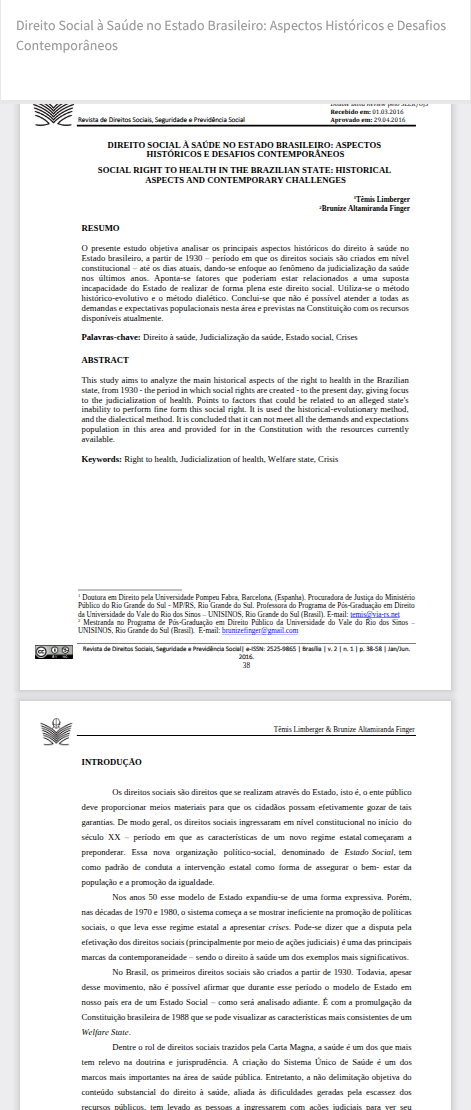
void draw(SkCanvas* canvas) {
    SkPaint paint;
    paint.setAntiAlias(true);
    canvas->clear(0xFFFFFFFF);
    paint.setColor(0xFFE7E7E7);
    canvas->drawRect(SkRect::MakeXYWH(470, 0, 1, 104), paint);
    canvas->drawRect(SkRect::MakeXYWH(0, 100, 471, 4), paint);
    canvas->drawRect(SkRect::MakeXYWH(0, 0, 1, 104), paint);
    SkFont font1(fontMgr->matchFamilyStyle("Source Sans Pro", SkFontStyle::Normal()), 14);
    font1.setSubpixel(true);
    paint.setColor(0xFF999999);
    canvas->drawString("Direito Social à Saúde no Estado Brasileiro: Aspectos Históricos e Desafios", 16, 30, font1, paint);
    canvas->drawString("Contemporâneos", 16, 50, font1, paint);
    canvas->drawImageRect(SkImages::DeferredFromEncodedData(SkData::MakeFromFileName("img1.png")), SkRect::MakeXYWH(0, 104, 471, 1006), SkSamplingOptions());
}
